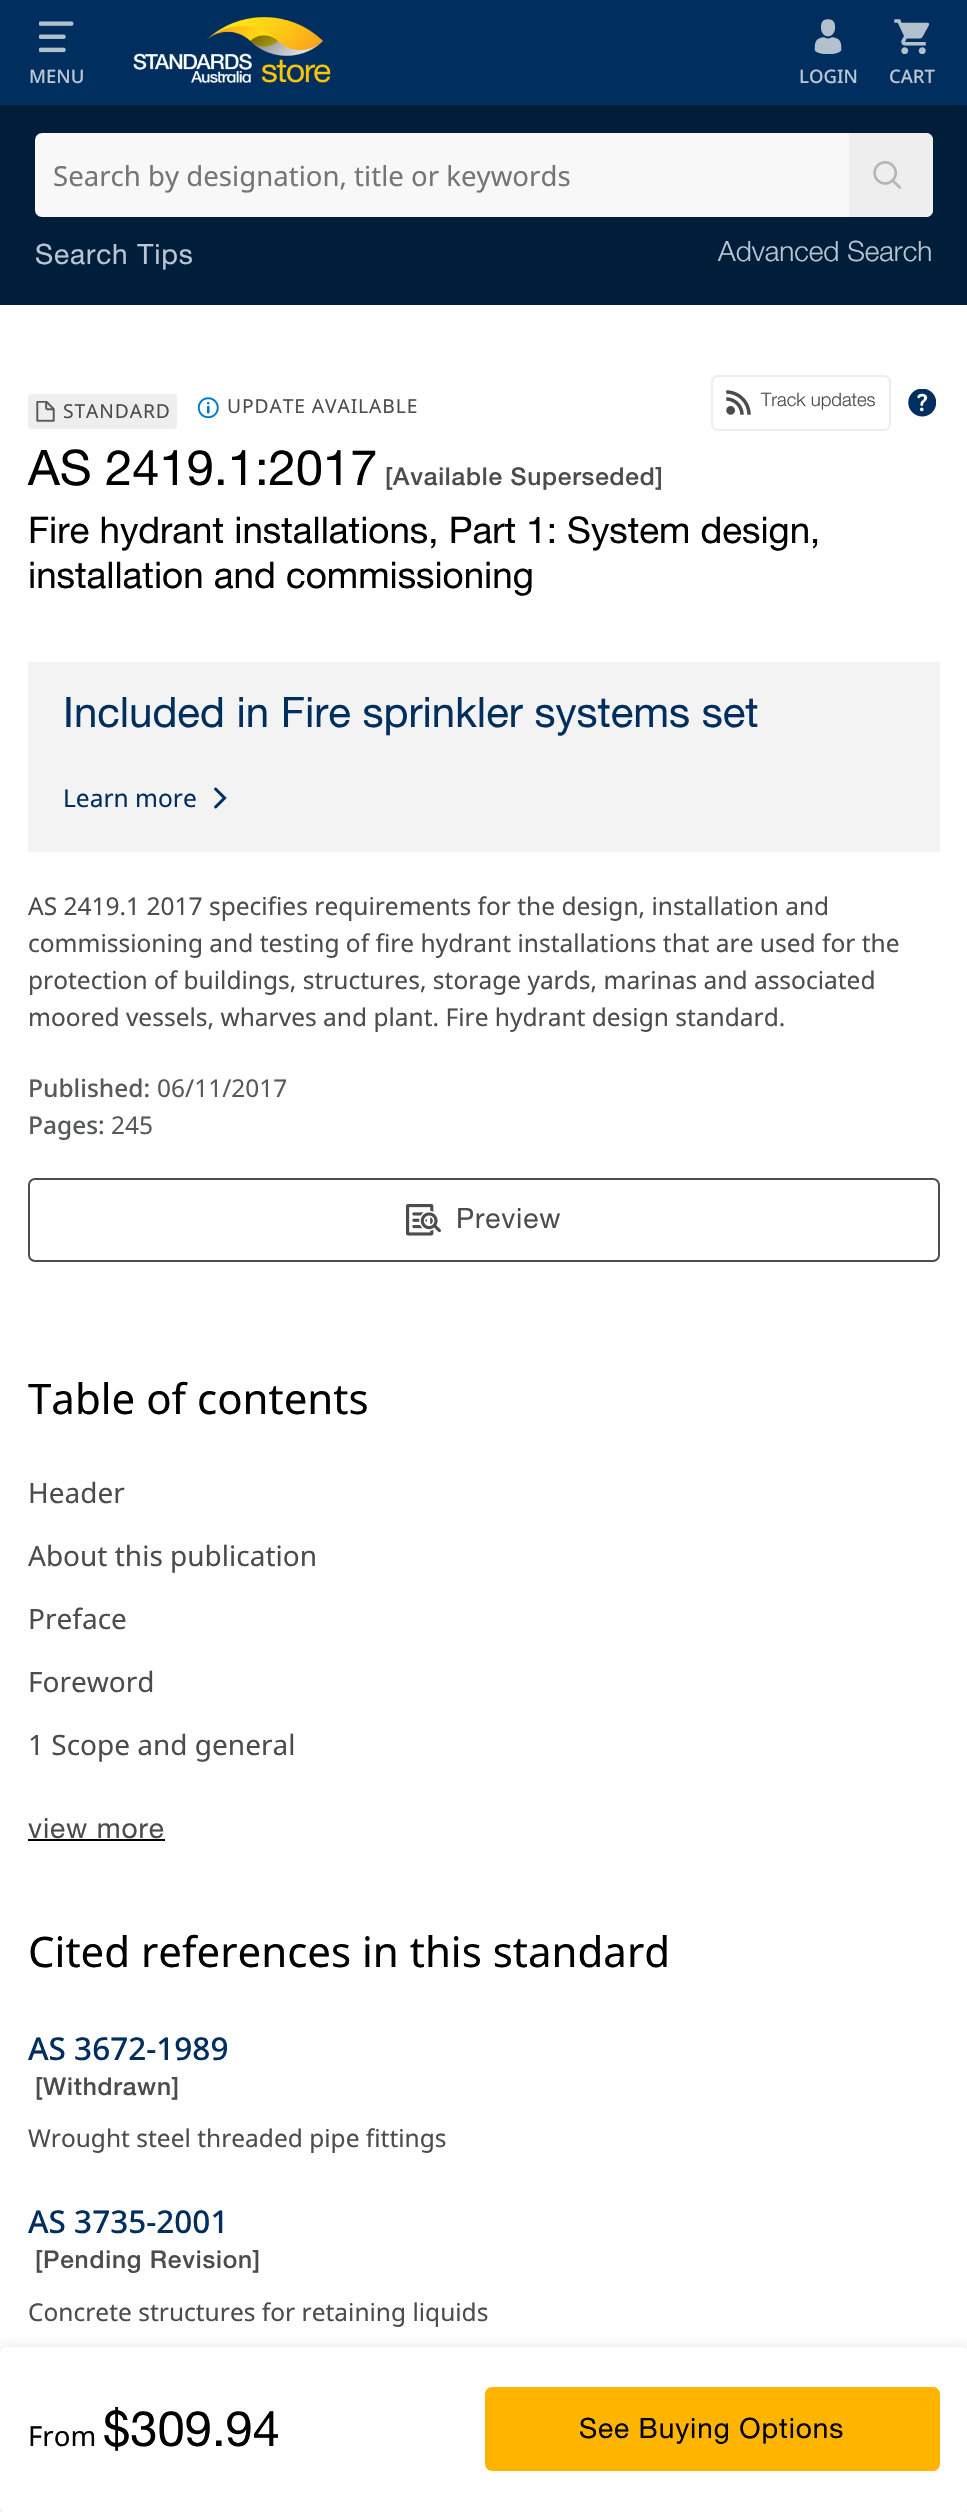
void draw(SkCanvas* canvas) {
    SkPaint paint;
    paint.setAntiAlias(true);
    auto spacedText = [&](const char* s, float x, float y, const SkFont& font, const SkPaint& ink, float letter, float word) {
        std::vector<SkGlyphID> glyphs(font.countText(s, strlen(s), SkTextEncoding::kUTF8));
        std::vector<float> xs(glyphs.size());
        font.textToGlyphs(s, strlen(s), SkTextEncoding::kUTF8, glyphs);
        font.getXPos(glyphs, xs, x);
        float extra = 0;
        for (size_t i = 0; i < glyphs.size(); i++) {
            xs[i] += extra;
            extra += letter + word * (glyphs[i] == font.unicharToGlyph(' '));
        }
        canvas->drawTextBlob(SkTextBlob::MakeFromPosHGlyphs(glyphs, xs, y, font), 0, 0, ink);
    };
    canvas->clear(0xFFFFFFFF);
    paint.setColor(0xFF002F5F);
    canvas->drawRect(SkRect::MakeXYWH(0, 0, 967, 105), paint);
    canvas->drawImageRect(SkImages::DeferredFromEncodedData(SkData::MakeFromFileName("img1.png")), SkRect::MakeXYWH(39, 21, 35, 32), SkSamplingOptions());
    SkFont font1(fontMgr->matchFamilyStyle("Noto Sans", SkFontStyle(500, SkFontStyle::kNormal_Width, SkFontStyle::kUpright_Slant)), 18.5f);
    font1.setSubpixel(true);
    paint.setColor(0xFFB8C6D4);
    canvas->drawString("MENU", 29, 83, font1, paint);
    canvas->drawImageRect(SkImages::DeferredFromEncodedData(SkData::MakeFromFileName("img2.png")), SkRect::MakeXYWH(133, 17, 198, 66), SkSamplingOptions());
    canvas->drawImageRect(SkImages::DeferredFromEncodedData(SkData::MakeFromFileName("img3.png")), SkRect::MakeXYWH(814, 19, 28, 35), SkSamplingOptions());
    canvas->drawString("LOGIN", 799, 83, font1, paint);
    canvas->drawImageRect(SkImages::DeferredFromEncodedData(SkData::MakeFromFileName("img4.png")), SkRect::MakeXYWH(894, 19, 35, 35), SkSamplingOptions());
    canvas->drawString("CART", 889, 83, font1, paint);
    paint.setColor(0xFF001D3A);
    canvas->drawRect(SkRect::MakeXYWH(0, 105, 967, 200), paint);
    paint.setColor(0xFFF8F8F8);
    canvas->drawRoundRect(SkRect::MakeXYWH(37, 135, 894, 80), 5, 5, paint);
    paint.setStyle(SkPaint::kStroke_Style);
    paint.setStrokeWidth(4);
    canvas->drawRoundRect(SkRect::MakeXYWH(37, 135, 894, 80), 5, 5, paint);
    SkFont font2(fontMgr->matchFamilyStyle("Noto Sans", SkFontStyle::Normal()), 27.6f);
    font2.setSubpixel(true);
    paint.setStyle(SkPaint::kFill_Style);
    paint.setColor(0xFF757575);
    canvas->drawString("Search by designation, title or keywords", 53, 186, font2, paint);
    paint.setColor(0xFFEEEEEE);
    canvas->drawPath(SkPathBuilder().moveTo(849, 133).lineTo(926, 133).cubicTo(930, 133, 933, 136, 933, 140).lineTo(933, 210).cubicTo(933, 214, 930, 217, 926, 217).lineTo(849, 217).close().detach(), paint);
    canvas->drawImageRect(SkImages::DeferredFromEncodedData(SkData::MakeFromFileName("img5.png")), SkRect::MakeXYWH(873, 161, 28, 28), SkSamplingOptions());
    SkFont font3(fontMgr->matchFamilyStyle("Helvetica Neue", SkFontStyle::Normal()), 28);
    font3.setSubpixel(true);
    paint.setColor(0xFFB8C6D4);
    spacedText("Search Tips", 35, 264, font3, paint, 0.9f, 0);
    SkFont font4(fontMgr->matchFamilyStyle("Helvetica Neue", SkFontStyle(300, SkFontStyle::kNormal_Width, SkFontStyle::kUpright_Slant)), 28);
    font4.setSubpixel(true);
    canvas->drawString("Advanced Search", 718, 261, font4, paint);
    paint.setColor(0xFFEEEEEE);
    canvas->drawRoundRect(SkRect::MakeXYWH(28, 394, 149, 35), 4, 4, paint);
    canvas->drawImageRect(SkImages::DeferredFromEncodedData(SkData::MakeFromFileName("img6.png")), SkRect::MakeXYWH(36, 401, 19, 21), SkSamplingOptions());
    SkFont font5(fontMgr->matchFamilyStyle("Noto Sans", SkFontStyle::Normal()), 19.25f);
    font5.setSubpixel(true);
    paint.setColor(0xFF4C4C4C);
    spacedText("STANDARD", 63, 418, font5, paint, 0.9f, 0);
    canvas->drawImageRect(SkImages::DeferredFromEncodedData(SkData::MakeFromFileName("img7.png")), SkRect::MakeXYWH(198, 397, 21, 21), SkSamplingOptions());
    spacedText("UPDATE AVAILABLE", 227, 413, font5, paint, 0.9f, 0);
    paint.setStyle(SkPaint::kStroke_Style);
    paint.setStrokeWidth(2);
    paint.setColor(0xFFEEEEEE);
    canvas->drawRoundRect(SkRect::MakeXYWH(712, 376, 178, 54), 6, 6, paint);
    canvas->drawImageRect(SkImages::DeferredFromEncodedData(SkData::MakeFromFileName("img8.png")), SkRect::MakeXYWH(726, 390, 25, 25), SkSamplingOptions());
    SkFont font6(fontMgr->matchFamilyStyle("Helvetica Neue", SkFontStyle(300, SkFontStyle::kNormal_Width, SkFontStyle::kUpright_Slant)), 18.5f);
    font6.setSubpixel(true);
    paint.setStyle(SkPaint::kFill_Style);
    paint.setColor(0xFF4C4C4C);
    canvas->drawString("Track updates", 761, 406, font6, paint);
    canvas->drawImageRect(SkImages::DeferredFromEncodedData(SkData::MakeFromFileName("img9.png")), SkRect::MakeXYWH(908, 389, 28, 28), SkSamplingOptions());
    SkFont font7(fontMgr->matchFamilyStyle("Helvetica Neue", SkFontStyle::Normal()), 49);
    font7.setSubpixel(true);
    paint.setColor(0xFF000000);
    canvas->drawString("AS 2419.1:2017", 28, 485, font7, paint);
    SkFont font8(fontMgr->matchFamilyStyle("Helvetica Neue", SkFontStyle(500, SkFontStyle::kNormal_Width, SkFontStyle::kUpright_Slant)), 24.5f);
    font8.setSubpixel(true);
    paint.setColor(0xFF4C4C4C);
    spacedText("[Available Superseded]", 385, 485, font8, paint, 0.8f, 0);
    SkFont font9(fontMgr->matchFamilyStyle("Helvetica Neue", SkFontStyle::Normal()), 36.75f);
    font9.setSubpixel(true);
    paint.setColor(0xFF000000);
    canvas->drawString("Fire hydrant installations, Part 1: System design,", 28, 543, font9, paint);
    canvas->drawString("installation and commissioning", 28, 588, font9, paint);
    paint.setColor(0xFFF3F3F3);
    canvas->drawRect(SkRect::MakeXYWH(28, 662, 912, 190), paint);
    SkFont font10(fontMgr->matchFamilyStyle("Helvetica Neue", SkFontStyle::Normal()), 42);
    font10.setSubpixel(true);
    paint.setColor(0xFF002F5F);
    canvas->drawString("Included in Fire sprinkler systems set", 63, 727, font10, paint);
    SkFont font11(fontMgr->matchFamilyStyle("Noto Sans", SkFontStyle::Normal()), 24.5f);
    font11.setSubpixel(true);
    canvas->drawString("Learn more", 63, 807, font11, paint);
    canvas->drawImageRect(SkImages::DeferredFromEncodedData(SkData::MakeFromFileName("img10.png")), SkRect::MakeXYWH(214, 787, 13, 22), SkSamplingOptions());
    paint.setColor(0xFF4C4C4C);
    canvas->drawString("AS 2419.1 2017 specifies requirements for the design, installation and", 28, 915, font11, paint);
    canvas->drawString("commissioning and testing of fire hydrant installations that are used for the", 28, 952, font11, paint);
    canvas->drawString("protection of buildings, structures, storage yards, marinas and associated", 28, 989, font11, paint);
    canvas->drawString("moored vessels, wharves and plant. Fire hydrant design standard.", 28, 1026, font11, paint);
    SkFont font12(fontMgr->matchFamilyStyle("Noto Sans", SkFontStyle(500, SkFontStyle::kNormal_Width, SkFontStyle::kUpright_Slant)), 24.5f);
    font12.setSubpixel(true);
    paint.setColor(0xFF58595B);
    canvas->drawString("Published:", 28, 1097, font12, paint);
    canvas->drawString("06/11/2017", 157, 1097, font11, paint);
    canvas->drawString("Pages:", 28, 1134, font12, paint);
    canvas->drawString("245", 111, 1134, font11, paint);
    paint.setStyle(SkPaint::kStroke_Style);
    paint.setColor(0xFF4C4C4C);
    canvas->drawRoundRect(SkRect::MakeXYWH(29, 1179, 910, 82), 6, 6, paint);
    canvas->drawImageRect(SkImages::DeferredFromEncodedData(SkData::MakeFromFileName("img11.png")), SkRect::MakeXYWH(406, 1204, 35, 32), SkSamplingOptions());
    paint.setStyle(SkPaint::kFill_Style);
    spacedText("Preview", 456, 1228, font3, paint, 0.9f, 0);
    SkFont font13(fontMgr->matchFamilyStyle("Noto Sans", SkFontStyle::Normal()), 42);
    font13.setSubpixel(true);
    paint.setColor(0xFF000000);
    canvas->drawString("Table of contents", 28, 1414, font13, paint);
    SkFont font14(fontMgr->matchFamilyStyle("Noto Sans", SkFontStyle::Normal()), 28);
    font14.setSubpixel(true);
    paint.setColor(0xFF4C4C4C);
    canvas->drawString("Header", 28, 1503, font14, paint);
    canvas->drawString("About this publication", 28, 1566, font14, paint);
    canvas->drawString("Preface", 28, 1629, font14, paint);
    canvas->drawString("Foreword", 28, 1692, font14, paint);
    canvas->drawString("1 Scope and general", 28, 1755, font14, paint);
    spacedText("view more", 28, 1838, font3, paint, 0.9f, 0);
    paint.setColor(0xFF000000);
    canvas->drawRect(SkRect::MakeXYWH(28, 1839, 137, 2), paint);
    canvas->drawString("Cited references in this standard", 28, 1967, font13, paint);
    SkFont font15(fontMgr->matchFamilyStyle("Noto Sans", SkFontStyle(500, SkFontStyle::kNormal_Width, SkFontStyle::kUpright_Slant)), 31.5f);
    font15.setSubpixel(true);
    paint.setColor(0xFF002F5F);
    canvas->drawString("AS 3672-1989", 28, 2060, font15, paint);
    paint.setColor(0xFF4C4C4C);
    spacedText("[Withdrawn]", 35, 2095, font8, paint, 0.8f, 0);
    canvas->drawString("Wrought steel threaded pipe fittings", 28, 2147, font11, paint);
    paint.setColor(0xFF002F5F);
    canvas->drawString("AS 3735-2001", 28, 2233, font15, paint);
    paint.setColor(0xFF4C4C4C);
    spacedText("[Pending Revision]", 35, 2268, font8, paint, 0.8f, 0);
    canvas->drawString("Concrete structures for retaining liquids", 28, 2321, font11, paint);
    paint.setColor(0x26000000);
    paint.setMaskFilter(SkMaskFilter::MakeBlur(kNormal_SkBlurStyle, 7));
    canvas->drawRoundRect(SkRect::MakeXYWH(0, 2349, 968, 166), 7, 7, paint);
    paint.setMaskFilter(nullptr);
    paint.setColor(0xFFFFFFFF);
    canvas->drawRoundRect(SkRect::MakeXYWH(0, 2347, 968, 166), 7, 7, paint);
    paint.setColor(0xFF000000);
    canvas->drawString("From", 28, 2446, font2, paint);
    canvas->drawString("$309.94", 103, 2446, font7, paint);
    paint.setColor(0xFFFFB500);
    canvas->drawRoundRect(SkRect::MakeXYWH(485, 2387, 455, 84), 7, 7, paint);
    paint.setColor(0xFF000000);
    spacedText("See Buying Options", 579, 2438, font3, paint, 0.9f, 0);
}
